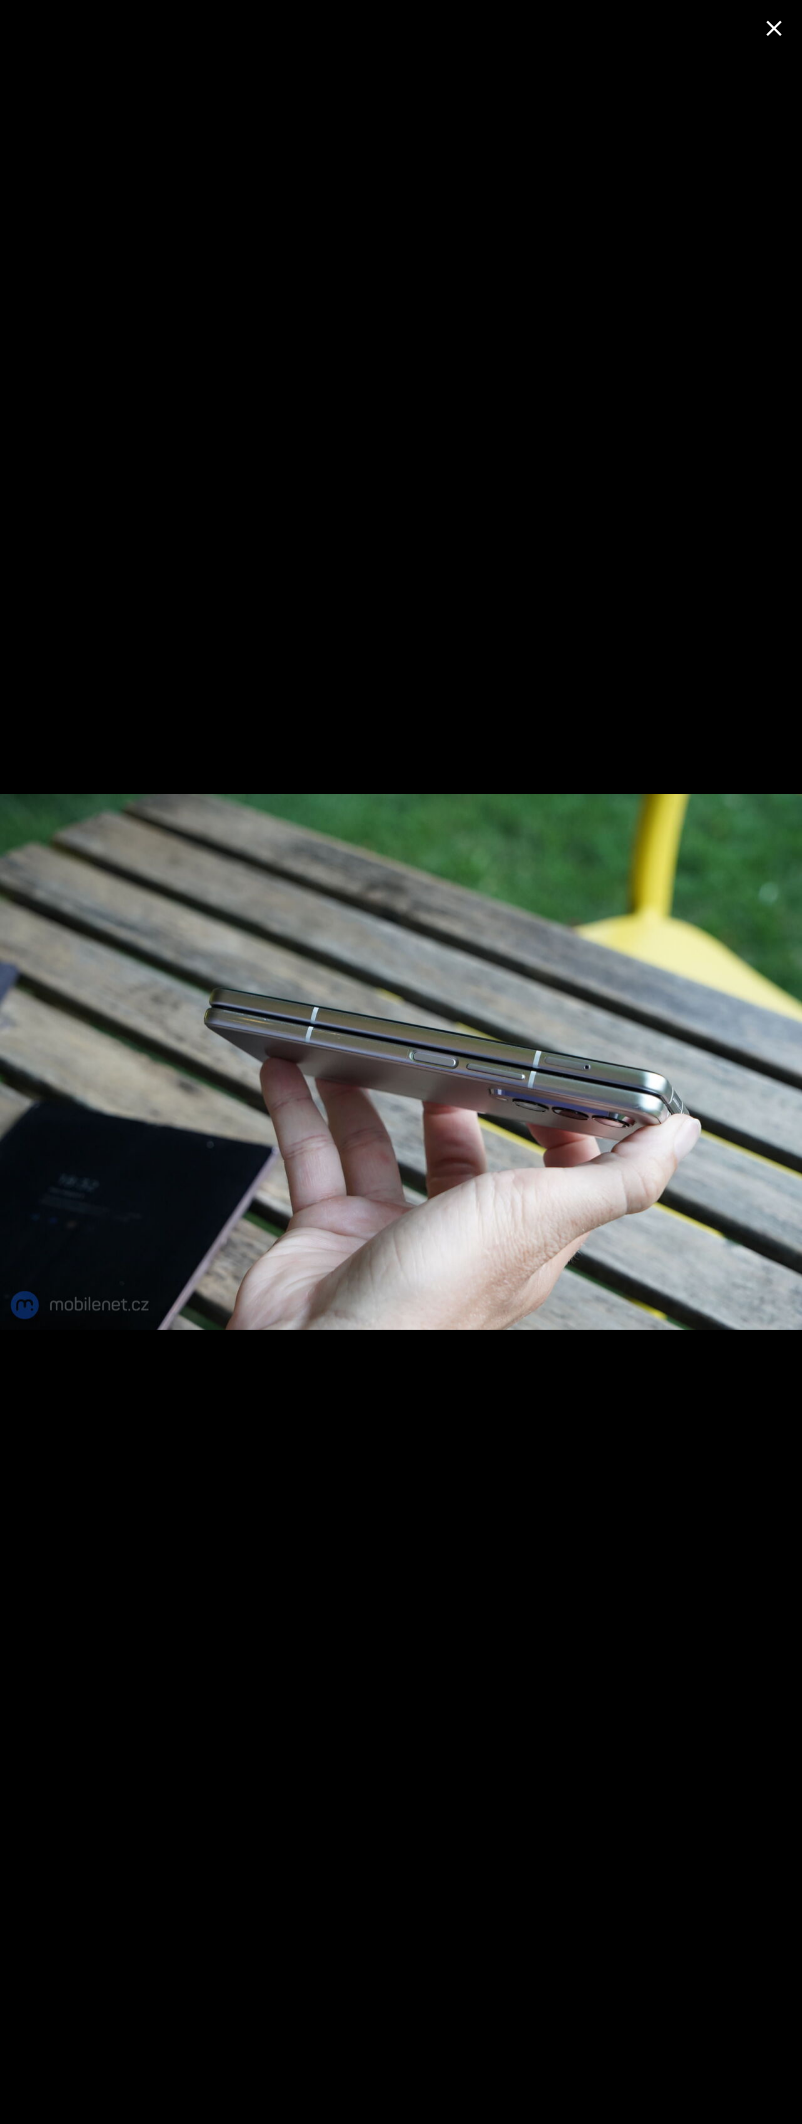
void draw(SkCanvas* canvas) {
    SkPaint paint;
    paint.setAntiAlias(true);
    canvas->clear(0xFF000000);
    canvas->drawImageRect(SkImages::DeferredFromEncodedData(SkData::MakeFromFileName("img1.png")), SkRect::MakeXYWH(766, 20, 16, 16), SkSamplingOptions());
    canvas->drawImageRect(SkImages::DeferredFromEncodedData(SkData::MakeFromFileName("img2.png")), SkRect::MakeXYWH(0, 794, 802, 536), SkSamplingOptions());
}
